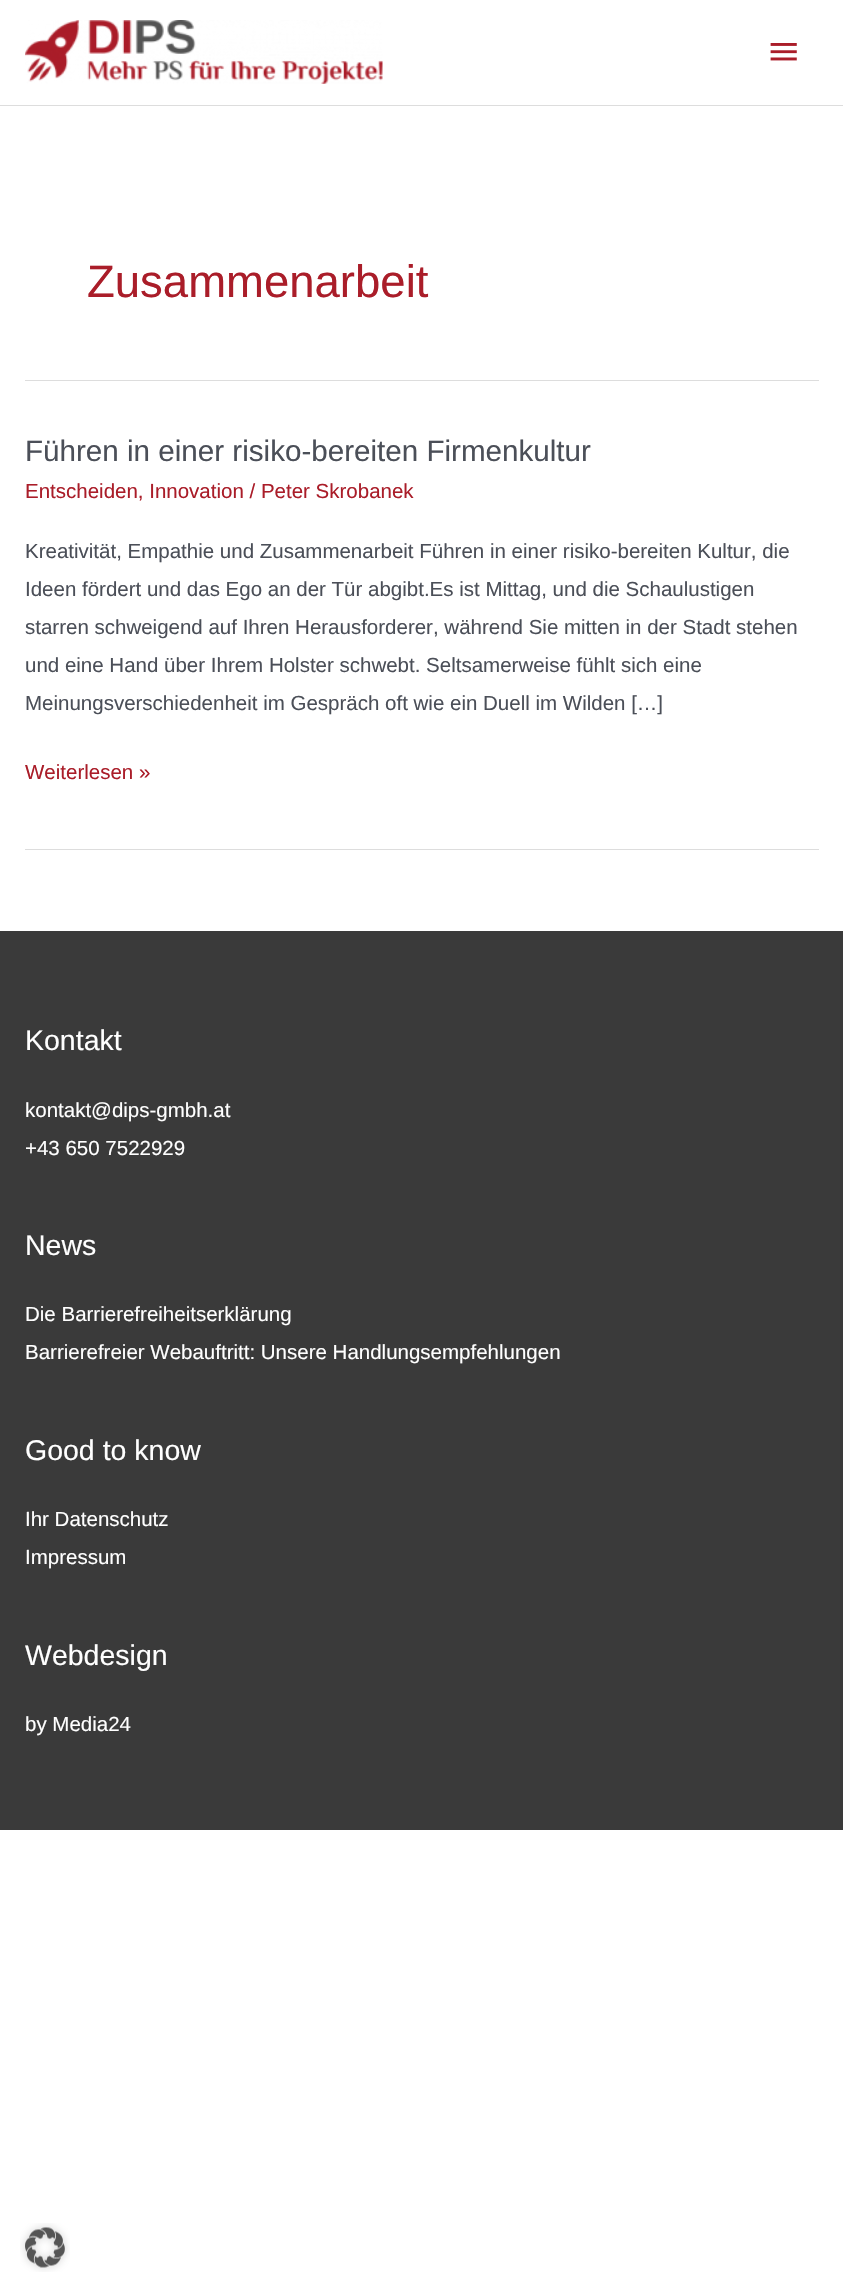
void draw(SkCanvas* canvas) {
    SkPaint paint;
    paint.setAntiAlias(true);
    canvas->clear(0xFFFFFFFF);
    paint.setColor(0xFFDDDDDD);
    canvas->drawRect(SkRect::MakeXYWH(0, 105, 843, 1), paint);
    canvas->drawImageRect(SkImages::DeferredFromEncodedData(SkData::MakeFromFileName("img1.png")), SkRect::MakeXYWH(25, 20, 358, 64), SkSamplingOptions());
    canvas->drawImageRect(SkImages::DeferredFromEncodedData(SkData::MakeFromFileName("img2.png")), SkRect::MakeXYWH(770, 43, 27, 18), SkSamplingOptions());
    canvas->drawRect(SkRect::MakeXYWH(25, 380, 794, 1), paint);
    SkFont font1(fontMgr->matchFamilyStyle("Liberation Sans", SkFontStyle::Normal()), 45.5f);
    font1.setSubpixel(true);
    paint.setColor(0xFFAA1D29);
    canvas->drawString("Zusammenarbeit", 87, 297, font1, paint);
    paint.setColor(0xFFDDDDDD);
    canvas->drawRect(SkRect::MakeXYWH(25, 849, 794, 1), paint);
    SkFont font2(fontMgr->matchFamilyStyle("Liberation Sans", SkFontStyle::Normal()), 29.6f);
    font2.setSubpixel(true);
    paint.setColor(0xFF4B4F58);
    canvas->drawString("Führen in einer risiko-bereiten Firmenkultur", 25, 461, font2, paint);
    SkFont font3(fontMgr->matchFamilyStyle("Liberation Sans", SkFontStyle::Normal()), 20.5f);
    font3.setSubpixel(true);
    paint.setColor(0xFFAA1D29);
    canvas->drawString("Entscheiden, Innovation / Peter Skrobanek", 25, 498, font3, paint);
    paint.setColor(0xFF4B4F58);
    canvas->drawString("Kreativität, Empathie und Zusammenarbeit Führen in einer risiko-bereiten Kultur, die", 25, 558, font3, paint);
    canvas->drawString("Ideen fördert und das Ego an der Tür abgibt.Es ist Mittag, und die Schaulustigen", 25, 596, font3, paint);
    canvas->drawString("starren schweigend auf Ihren Herausforderer, während Sie mitten in der Stadt stehen", 25, 634, font3, paint);
    canvas->drawString("und eine Hand über Ihrem Holster schwebt. Seltsamerweise fühlt sich eine", 25, 672, font3, paint);
    canvas->drawString("Meinungsverschiedenheit im Gespräch oft wie ein Duell im Wilden […]", 25, 710, font3, paint);
    paint.setColor(0xFFAA1D29);
    canvas->drawString("Weiterlesen »", 25, 779, font3, paint);
    paint.setColor(0xFF3A3A3A);
    canvas->drawRect(SkRect::MakeXYWH(0, 931, 843, 899), paint);
    SkFont font4(fontMgr->matchFamilyStyle("Liberation Sans", SkFontStyle::Normal()), 28.5f);
    font4.setSubpixel(true);
    paint.setColor(0xFFFFFFFF);
    canvas->drawString("Kontakt", 25, 1050, font4, paint);
    canvas->drawString("kontakt@dips-gmbh.at", 25, 1117, font3, paint);
    canvas->drawString("+43 650 7522929", 25, 1155, font3, paint);
    canvas->drawString("News", 25, 1255, font4, paint);
    canvas->drawString("Die Barrierefreiheitserklärung", 25, 1321, font3, paint);
    canvas->drawString("Barrierefreier Webauftritt: Unsere Handlungsempfehlungen", 25, 1359, font3, paint);
    canvas->drawString("Good to know", 25, 1460, font4, paint);
    canvas->drawString("Ihr Datenschutz", 25, 1526, font3, paint);
    canvas->drawString("Impressum", 25, 1564, font3, paint);
    canvas->drawString("Webdesign", 25, 1665, font4, paint);
    canvas->drawString("by Media24", 25, 1731, font3, paint);
    canvas->drawImageRect(SkImages::DeferredFromEncodedData(SkData::MakeFromFileName("img3.png")), SkRect::MakeXYWH(20, 2223, 50, 49), SkSamplingOptions());
}
